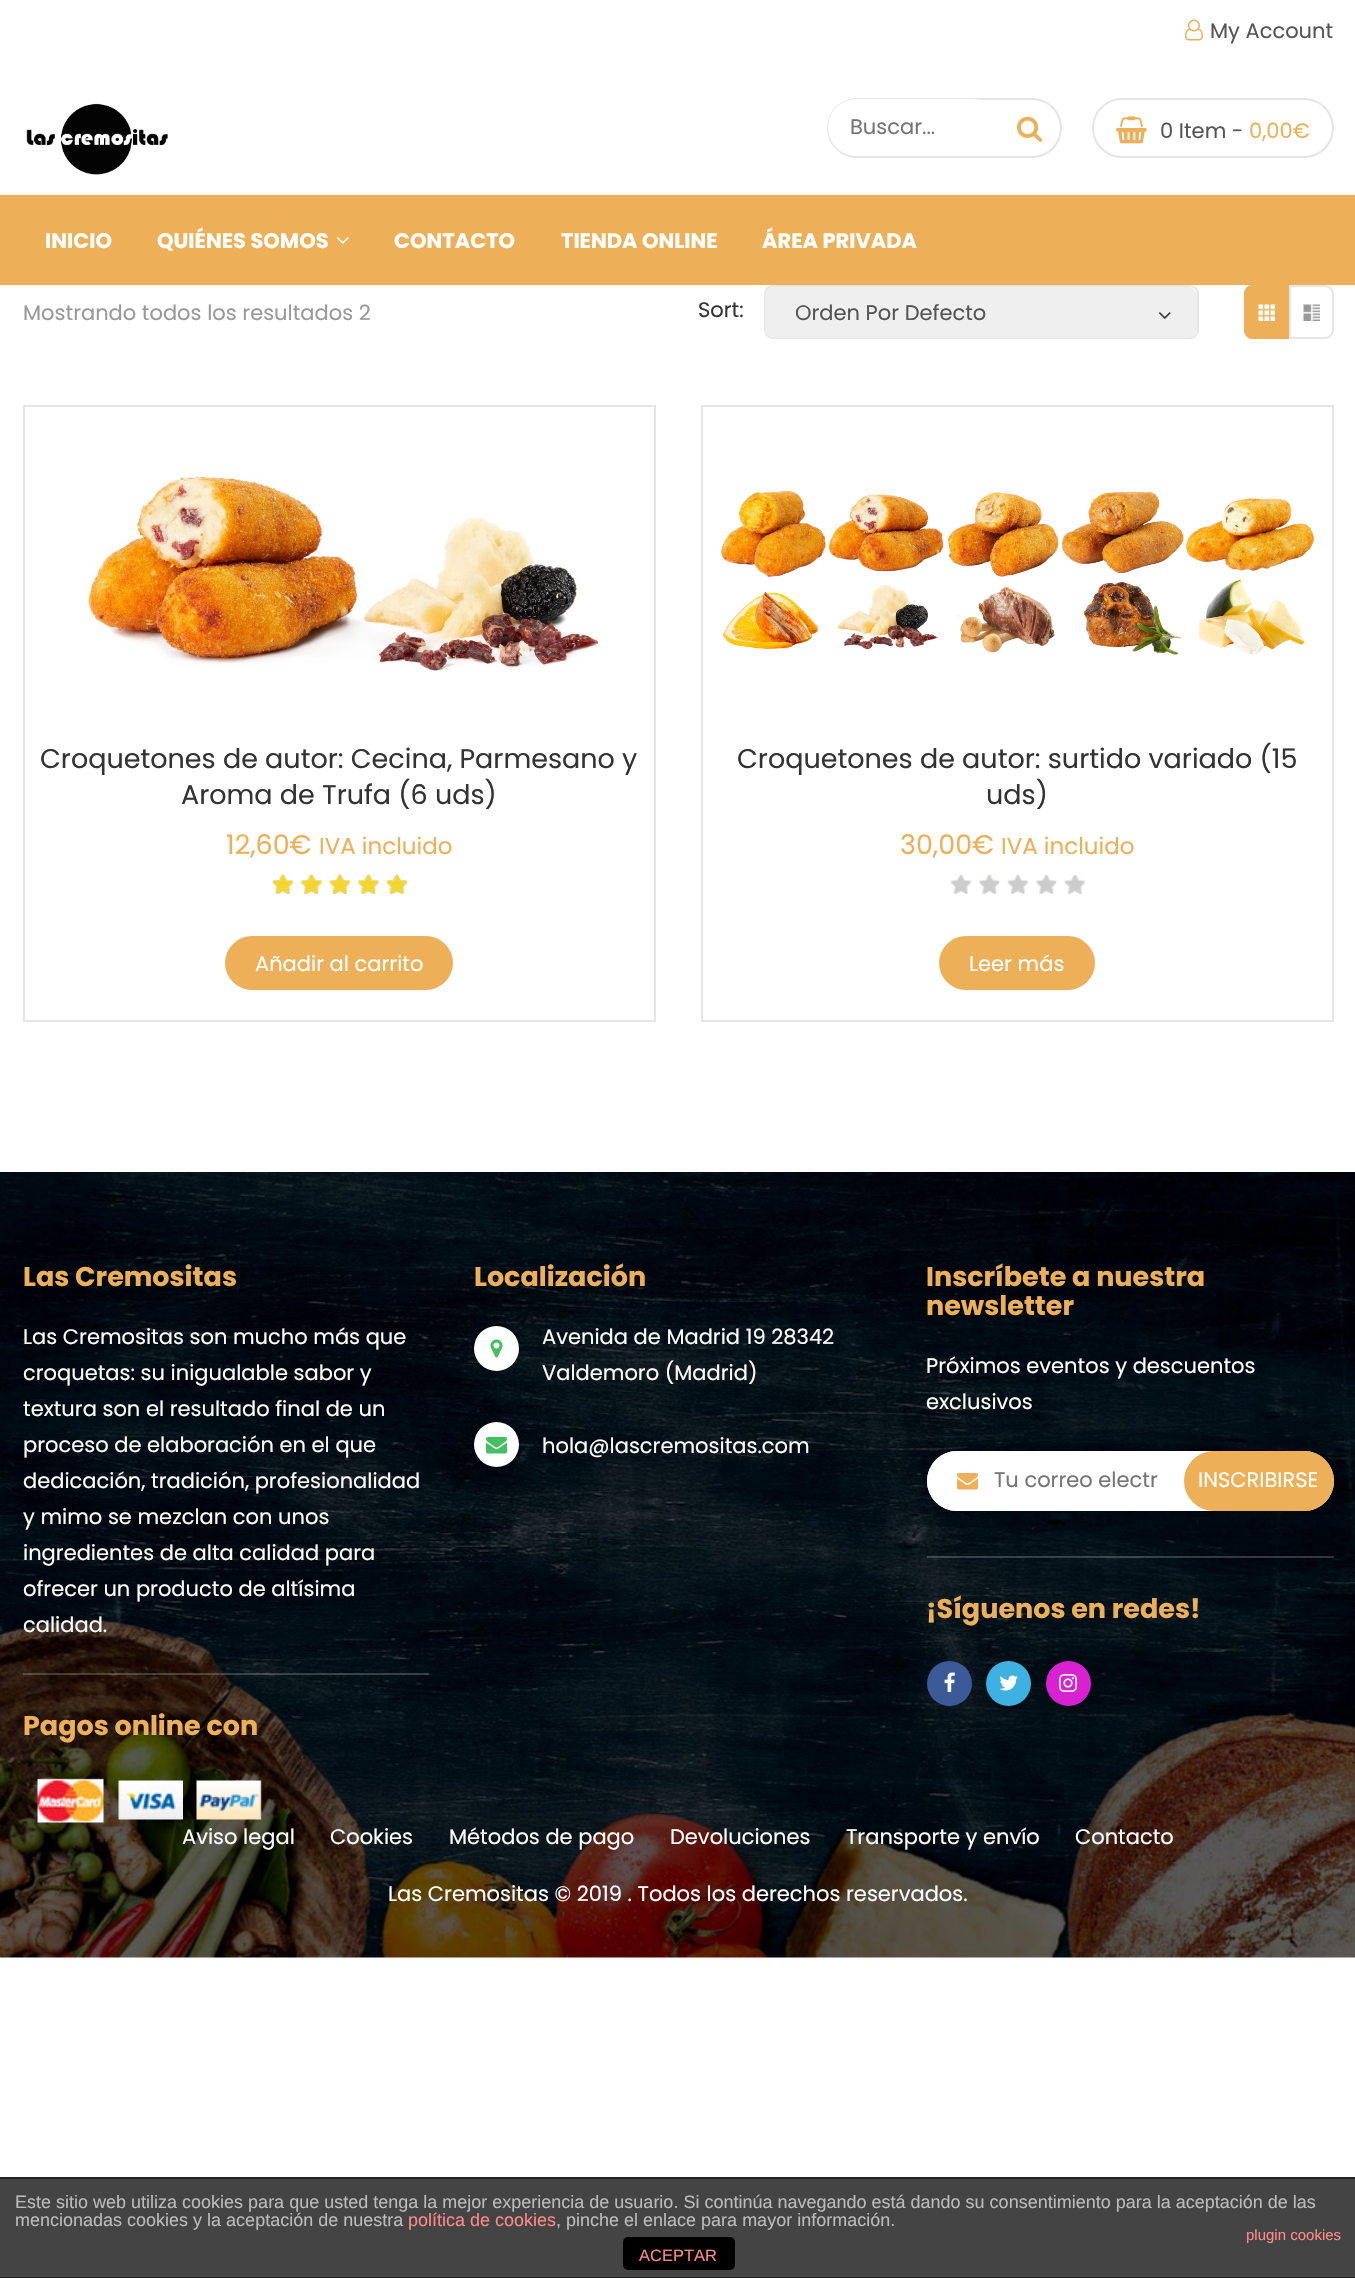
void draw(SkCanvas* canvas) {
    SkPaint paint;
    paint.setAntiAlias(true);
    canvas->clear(0xFFFFFFFF);
    canvas->drawImageRect(SkImages::DeferredFromEncodedData(SkData::MakeFromFileName("img1.png")), SkRect::MakeXYWH(1185, 19, 18, 22), SkSamplingOptions());
    SkFont font1(fontMgr->matchFamilyStyle("Poppins", SkFontStyle::Normal()), 21);
    font1.setSubpixel(true);
    paint.setColor(0xFF555555);
    canvas->drawString("My Account", 1210, 38, font1, paint);
    canvas->drawImageRect(SkImages::DeferredFromEncodedData(SkData::MakeFromFileName("img2.png")), SkRect::MakeXYWH(26, 103, 142, 72), SkSamplingOptions());
    paint.setStyle(SkPaint::kStroke_Style);
    paint.setStrokeWidth(2);
    paint.setColor(0xFFE5E5E5);
    canvas->drawRoundRect(SkRect::MakeXYWH(828, 99, 233, 58), 29, 29, paint);
    paint.setStyle(SkPaint::kFill_Style);
    paint.setColor(0xFFFFFFFF);
    canvas->drawRoundRect(SkRect::MakeXYWH(828, 99, 173, 57), 28.5f, 28.5f, paint);
    paint.setColor(0xFF757575);
    canvas->drawString("Buscar...", 850, 134, font1, paint);
    canvas->drawImageRect(SkImages::DeferredFromEncodedData(SkData::MakeFromFileName("img3.png")), SkRect::MakeXYWH(1017, 116, 25, 26), SkSamplingOptions());
    paint.setStyle(SkPaint::kStroke_Style);
    paint.setColor(0xFFE5E5E5);
    canvas->drawRoundRect(SkRect::MakeXYWH(1093, 99, 240, 58), 29, 29, paint);
    canvas->drawImageRect(SkImages::DeferredFromEncodedData(SkData::MakeFromFileName("img4.png")), SkRect::MakeXYWH(1116, 116, 31, 28), SkSamplingOptions());
    paint.setStyle(SkPaint::kFill_Style);
    paint.setColor(0xFF555555);
    canvas->drawString("0 Item -", 1160, 138, font1, paint);
    paint.setColor(0xFFEDB059);
    canvas->drawString("0,00€", 1249, 138, font1, paint);
    canvas->drawRect(SkRect::MakeXYWH(0, 195, 1355, 90), paint);
    SkFont font2(fontMgr->matchFamilyStyle("Poppins", SkFontStyle::Bold()), 21);
    font2.setSubpixel(true);
    paint.setColor(0xFFFFFFFF);
    canvas->drawString("INICIO", 45, 248, font2, paint);
    canvas->drawString("QUIÉNES SOMOS", 157, 248, font2, paint);
    canvas->drawImageRect(SkImages::DeferredFromEncodedData(SkData::MakeFromFileName("img5.png")), SkRect::MakeXYWH(337, 237, 12, 7), SkSamplingOptions());
    canvas->drawString("CONTACTO", 394, 248, font2, paint);
    canvas->drawString("TIENDA ONLINE", 561, 248, font2, paint);
    canvas->drawString("ÁREA PRIVADA", 762, 248, font2, paint);
    paint.setColor(0xFF999999);
    canvas->drawString("Mostrando todos los resultados 2", 23, 320, font1, paint);
    paint.setColor(0xFF333333);
    canvas->drawString("Sort:", 698, 317, font1, paint);
    paint.setStyle(SkPaint::kStroke_Style);
    paint.setColor(0xFFE5E5E5);
    canvas->drawRoundRect(SkRect::MakeXYWH(765, 286, 433, 52), 8, 8, paint);
    paint.setStyle(SkPaint::kFill_Style);
    paint.setColor(0xFFEFEFEF);
    canvas->drawRoundRect(SkRect::MakeXYWH(765, 287, 432, 51), 9, 9, paint);
    paint.setColor(0xFF555555);
    canvas->drawString("Orden Por Defecto", 795, 320, font1, paint);
    canvas->drawImageRect(SkImages::DeferredFromEncodedData(SkData::MakeFromFileName("img6.png")), SkRect::MakeXYWH(1159, 312, 12, 7), SkSamplingOptions());
    paint.setColor(0xFFEDB059);
    canvas->drawPath(SkPathBuilder().moveTo(1253, 285).lineTo(1289, 285).lineTo(1289, 339).lineTo(1253, 339).cubicTo(1248, 339, 1244, 335, 1244, 330).lineTo(1244, 294).cubicTo(1244, 289, 1248, 285, 1253, 285).close().detach(), paint);
    canvas->drawImageRect(SkImages::DeferredFromEncodedData(SkData::MakeFromFileName("img7.png")), SkRect::MakeXYWH(1258, 304, 17, 17), SkSamplingOptions());
    paint.setStyle(SkPaint::kStroke_Style);
    canvas->drawPath(SkPathBuilder().moveTo(1253, 286).lineTo(1288, 286).lineTo(1288, 338).lineTo(1253, 338).cubicTo(1248.5f, 338, 1245, 334.5f, 1245, 330).lineTo(1245, 294).cubicTo(1245, 289.5f, 1248.5f, 286, 1253, 286).close().detach(), paint);
    canvas->drawImageRect(SkImages::DeferredFromEncodedData(SkData::MakeFromFileName("img8.png")), SkRect::MakeXYWH(1303, 304, 17, 17), SkSamplingOptions());
    paint.setColor(0xFFE5E5E5);
    canvas->drawPath(SkPathBuilder().moveTo(1290, 286).lineTo(1325, 286).cubicTo(1329.5f, 286, 1333, 289.5f, 1333, 294).lineTo(1333, 330).cubicTo(1333, 334.5f, 1329.5f, 338, 1325, 338).lineTo(1290, 338).close().detach(), paint);
    canvas->drawRect(SkRect::MakeXYWH(24, 406, 631, 615), paint);
    canvas->drawImageRect(SkImages::DeferredFromEncodedData(SkData::MakeFromFileName("img9.png")), SkRect::MakeXYWH(83, 472, 518, 200), SkSamplingOptions());
    SkFont font3(fontMgr->matchFamilyStyle("Poppins", SkFontStyle::Normal()), 27);
    font3.setSubpixel(true);
    paint.setStyle(SkPaint::kFill_Style);
    paint.setColor(0xFF333333);
    canvas->drawString("Croquetones de autor: Cecina, Parmesano y", 40, 768, font3, paint);
    canvas->drawString("Aroma de Trufa (6 uds)", 181, 804, font3, paint);
    paint.setColor(0xFFEDB059);
    canvas->drawString("12,60€", 226, 854, font3, paint);
    SkFont font4(fontMgr->matchFamilyStyle("Poppins", SkFontStyle::Normal()), 23);
    font4.setSubpixel(true);
    canvas->drawString("IVA incluido", 319, 854, font4, paint);
    canvas->drawImageRect(SkImages::DeferredFromEncodedData(SkData::MakeFromFileName("img10.png")), SkRect::MakeXYWH(272, 874, 136, 20), SkSamplingOptions());
    canvas->drawImageRect(SkImages::DeferredFromEncodedData(SkData::MakeFromFileName("img11.png")), SkRect::MakeXYWH(272, 874, 136, 20), SkSamplingOptions());
    canvas->drawRoundRect(SkRect::MakeXYWH(225, 936, 228, 54), 27, 27, paint);
    paint.setColor(0xFFFFFFFF);
    canvas->drawString("Añadir al carrito", 255, 971, font1, paint);
    paint.setStyle(SkPaint::kStroke_Style);
    paint.setColor(0xFFE5E5E5);
    canvas->drawRect(SkRect::MakeXYWH(702, 406, 631, 615), paint);
    canvas->drawImageRect(SkImages::DeferredFromEncodedData(SkData::MakeFromFileName("img12.png")), SkRect::MakeXYWH(721, 491, 593, 164), SkSamplingOptions());
    paint.setStyle(SkPaint::kFill_Style);
    paint.setColor(0xFF333333);
    canvas->drawString("Croquetones de autor: surtido variado (15", 737, 768, font3, paint);
    canvas->drawString("uds)", 986, 804, font3, paint);
    paint.setColor(0xFFEDB059);
    canvas->drawString("30,00€", 900, 854, font3, paint);
    canvas->drawString("IVA incluido", 1001, 854, font4, paint);
    canvas->drawImageRect(SkImages::DeferredFromEncodedData(SkData::MakeFromFileName("img13.png")), SkRect::MakeXYWH(950, 874, 136, 20), SkSamplingOptions());
    canvas->drawRoundRect(SkRect::MakeXYWH(939, 936, 156, 54), 27, 27, paint);
    paint.setColor(0xFFFFFFFF);
    canvas->drawString("Leer más", 969, 971, font1, paint);
    canvas->drawImageRect(SkImages::DeferredFromEncodedData(SkData::MakeFromFileName("img14.png")), SkRect::MakeXYWH(0, 1172, 1355, 786), SkSamplingOptions());
    SkFont font5(fontMgr->matchFamilyStyle("Poppins", SkFontStyle::Bold()), 27);
    font5.setSubpixel(true);
    paint.setColor(0xFFEDB059);
    canvas->drawString("Las Cremositas", 23, 1286, font5, paint);
    paint.setColor(0xFFFFFFFF);
    canvas->drawString("Las Cremositas son mucho más que", 23, 1344, font1, paint);
    canvas->drawString("croquetas: su inigualable sabor y", 23, 1380, font1, paint);
    canvas->drawString("textura son el resultado final de un", 23, 1416, font1, paint);
    canvas->drawString("proceso de elaboración en el que", 23, 1452, font1, paint);
    canvas->drawString("dedicación, tradición, profesionalidad", 23, 1488, font1, paint);
    canvas->drawString("y mimo se mezclan con unos", 23, 1524, font1, paint);
    canvas->drawString("ingredientes de alta calidad para", 23, 1560, font1, paint);
    canvas->drawString("ofrecer un producto de altísima", 23, 1596, font1, paint);
    canvas->drawString("calidad.", 23, 1632, font1, paint);
    paint.setColor(0x33FFFFFF);
    canvas->drawRect(SkRect::MakeXYWH(23, 1673, 406, 2), paint);
    paint.setColor(0xFFEDB059);
    canvas->drawString("Pagos online con", 23, 1735, font5, paint);
    canvas->drawImageRect(SkImages::DeferredFromEncodedData(SkData::MakeFromFileName("img15.png")), SkRect::MakeXYWH(37, 1778, 67, 45), SkSamplingOptions());
    canvas->drawImageRect(SkImages::DeferredFromEncodedData(SkData::MakeFromFileName("img16.png")), SkRect::MakeXYWH(118, 1780, 65, 40), SkSamplingOptions());
    canvas->drawImageRect(SkImages::DeferredFromEncodedData(SkData::MakeFromFileName("img17.png")), SkRect::MakeXYWH(196, 1780, 66, 40), SkSamplingOptions());
    canvas->drawString("Localización", 474, 1286, font5, paint);
    paint.setColor(0xFFFFFFFF);
    canvas->drawCircle(496.5f, 1348.5f, 22.5f, paint);
    canvas->drawImageRect(SkImages::DeferredFromEncodedData(SkData::MakeFromFileName("img18.png")), SkRect::MakeXYWH(490, 1339, 13, 19), SkSamplingOptions());
    canvas->drawString("Avenida de Madrid 19 28342", 542, 1344, font1, paint);
    canvas->drawString("Valdemoro (Madrid)", 542, 1380, font1, paint);
    canvas->drawCircle(496.5f, 1444.5f, 22.5f, paint);
    canvas->drawImageRect(SkImages::DeferredFromEncodedData(SkData::MakeFromFileName("img19.png")), SkRect::MakeXYWH(486, 1437, 21, 17), SkSamplingOptions());
    canvas->drawString("hola@lascremositas.com", 542, 1453, font1, paint);
    paint.setColor(0xFFEDB059);
    canvas->drawString("Inscríbete a nuestra", 926, 1286, font5, paint);
    canvas->drawString("newsletter", 926, 1315, font5, paint);
    paint.setColor(0xFFFFFFFF);
    canvas->drawString("Próximos eventos y descuentos", 926, 1373, font1, paint);
    canvas->drawString("exclusivos", 926, 1409, font1, paint);
    canvas->drawRoundRect(SkRect::MakeXYWH(927, 1451, 407, 60), 30, 30, paint);
    canvas->drawRoundRect(SkRect::MakeXYWH(927, 1451, 257, 60), 30, 30, paint);
    canvas->drawImageRect(SkImages::DeferredFromEncodedData(SkData::MakeFromFileName("img20.png")), SkRect::MakeXYWH(957, 1473, 21, 17), SkSamplingOptions());
    paint.setColor(0xFF757575);
    canvas->drawString("Tu correo electr", 994, 1487, font1, paint);
    paint.setColor(0xFFEDB059);
    canvas->drawRoundRect(SkRect::MakeXYWH(1184, 1451, 150, 60), 30, 30, paint);
    paint.setColor(0xFFFFFFFF);
    canvas->drawString("INSCRIBIRSE", 1198, 1487, font1, paint);
    paint.setColor(0x33FFFFFF);
    canvas->drawRect(SkRect::MakeXYWH(927, 1556, 407, 2), paint);
    paint.setColor(0xFFEDB059);
    canvas->drawString("¡Síguenos en redes!", 926, 1618, font5, paint);
    paint.setColor(0xFF3C5998);
    canvas->drawCircle(949.5f, 1683.5f, 22.5f, paint);
    canvas->drawImageRect(SkImages::DeferredFromEncodedData(SkData::MakeFromFileName("img21.png")), SkRect::MakeXYWH(944, 1672, 11, 20), SkSamplingOptions());
    paint.setColor(0xFF3EB1E2);
    canvas->drawCircle(1008.5f, 1683.5f, 22.5f, paint);
    canvas->drawImageRect(SkImages::DeferredFromEncodedData(SkData::MakeFromFileName("img22.png")), SkRect::MakeXYWH(999, 1675, 19, 16), SkSamplingOptions());
    paint.setColor(0xFFD822D2);
    canvas->drawCircle(1068.5f, 1683.5f, 22.5f, paint);
    canvas->drawImageRect(SkImages::DeferredFromEncodedData(SkData::MakeFromFileName("img23.png")), SkRect::MakeXYWH(1059, 1674, 18, 18), SkSamplingOptions());
    paint.setColor(0xFFFFFFFF);
    canvas->drawString("Aviso legal", 182, 1844, font1, paint);
    canvas->drawString("Cookies", 330, 1844, font1, paint);
    canvas->drawString("Métodos de pago", 449, 1844, font1, paint);
    canvas->drawString("Devoluciones", 670, 1844, font1, paint);
    canvas->drawString("Transporte y envío", 846, 1844, font1, paint);
    canvas->drawString("Contacto", 1075, 1844, font1, paint);
    canvas->drawString("Las Cremositas © 2019 . Todos los derechos reservados.", 388, 1901, font1, paint);
    paint.setColor(0xFF444444);
    canvas->drawRect(SkRect::MakeXYWH(0, 2179, 1355, 98), paint);
    paint.setColor(0xFF222222);
    canvas->drawRect(SkRect::MakeXYWH(0, 2177, 1355, 2), paint);
    canvas->drawRect(SkRect::MakeXYWH(0, 2277, 1355, 1), paint);
    SkFont font6(fontMgr->matchFamilyStyle("Liberation Sans", SkFontStyle::Normal()), 18);
    font6.setSubpixel(true);
    paint.setColor(0xFFBBBBBB);
    canvas->drawString("Este sitio web utiliza cookies para que usted tenga la mejor experiencia de usuario. Si continúa navegando está dando su consentimiento para la aceptación de las", 15, 2208, font6, paint);
    canvas->drawString("mencionadas cookies y la aceptación de nuestra", 15, 2226, font6, paint);
    paint.setColor(0xFFFF8888);
    canvas->drawString("política de cookies", 408, 2226, font6, paint);
    paint.setColor(0xFFBBBBBB);
    canvas->drawString(", pinche el enlace para mayor información.", 556, 2226, font6, paint);
    SkFont font7(fontMgr->matchFamilyStyle("Liberation Sans", SkFontStyle::Normal()), 15);
    font7.setSubpixel(true);
    paint.setColor(0xFFFF8888);
    canvas->drawString("plugin cookies", 1246, 2240, font7, paint);
    paint.setColor(0xFF000000);
    canvas->drawRoundRect(SkRect::MakeXYWH(623, 2237, 112, 33), 5, 5, paint);
    SkFont font8(fontMgr->matchFamilyStyle("Liberation Sans", SkFontStyle::Normal()), 16.5f);
    font8.setSubpixel(true);
    paint.setColor(0xFFFF8888);
    canvas->drawString("ACEPTAR", 639, 2261, font8, paint);
}
